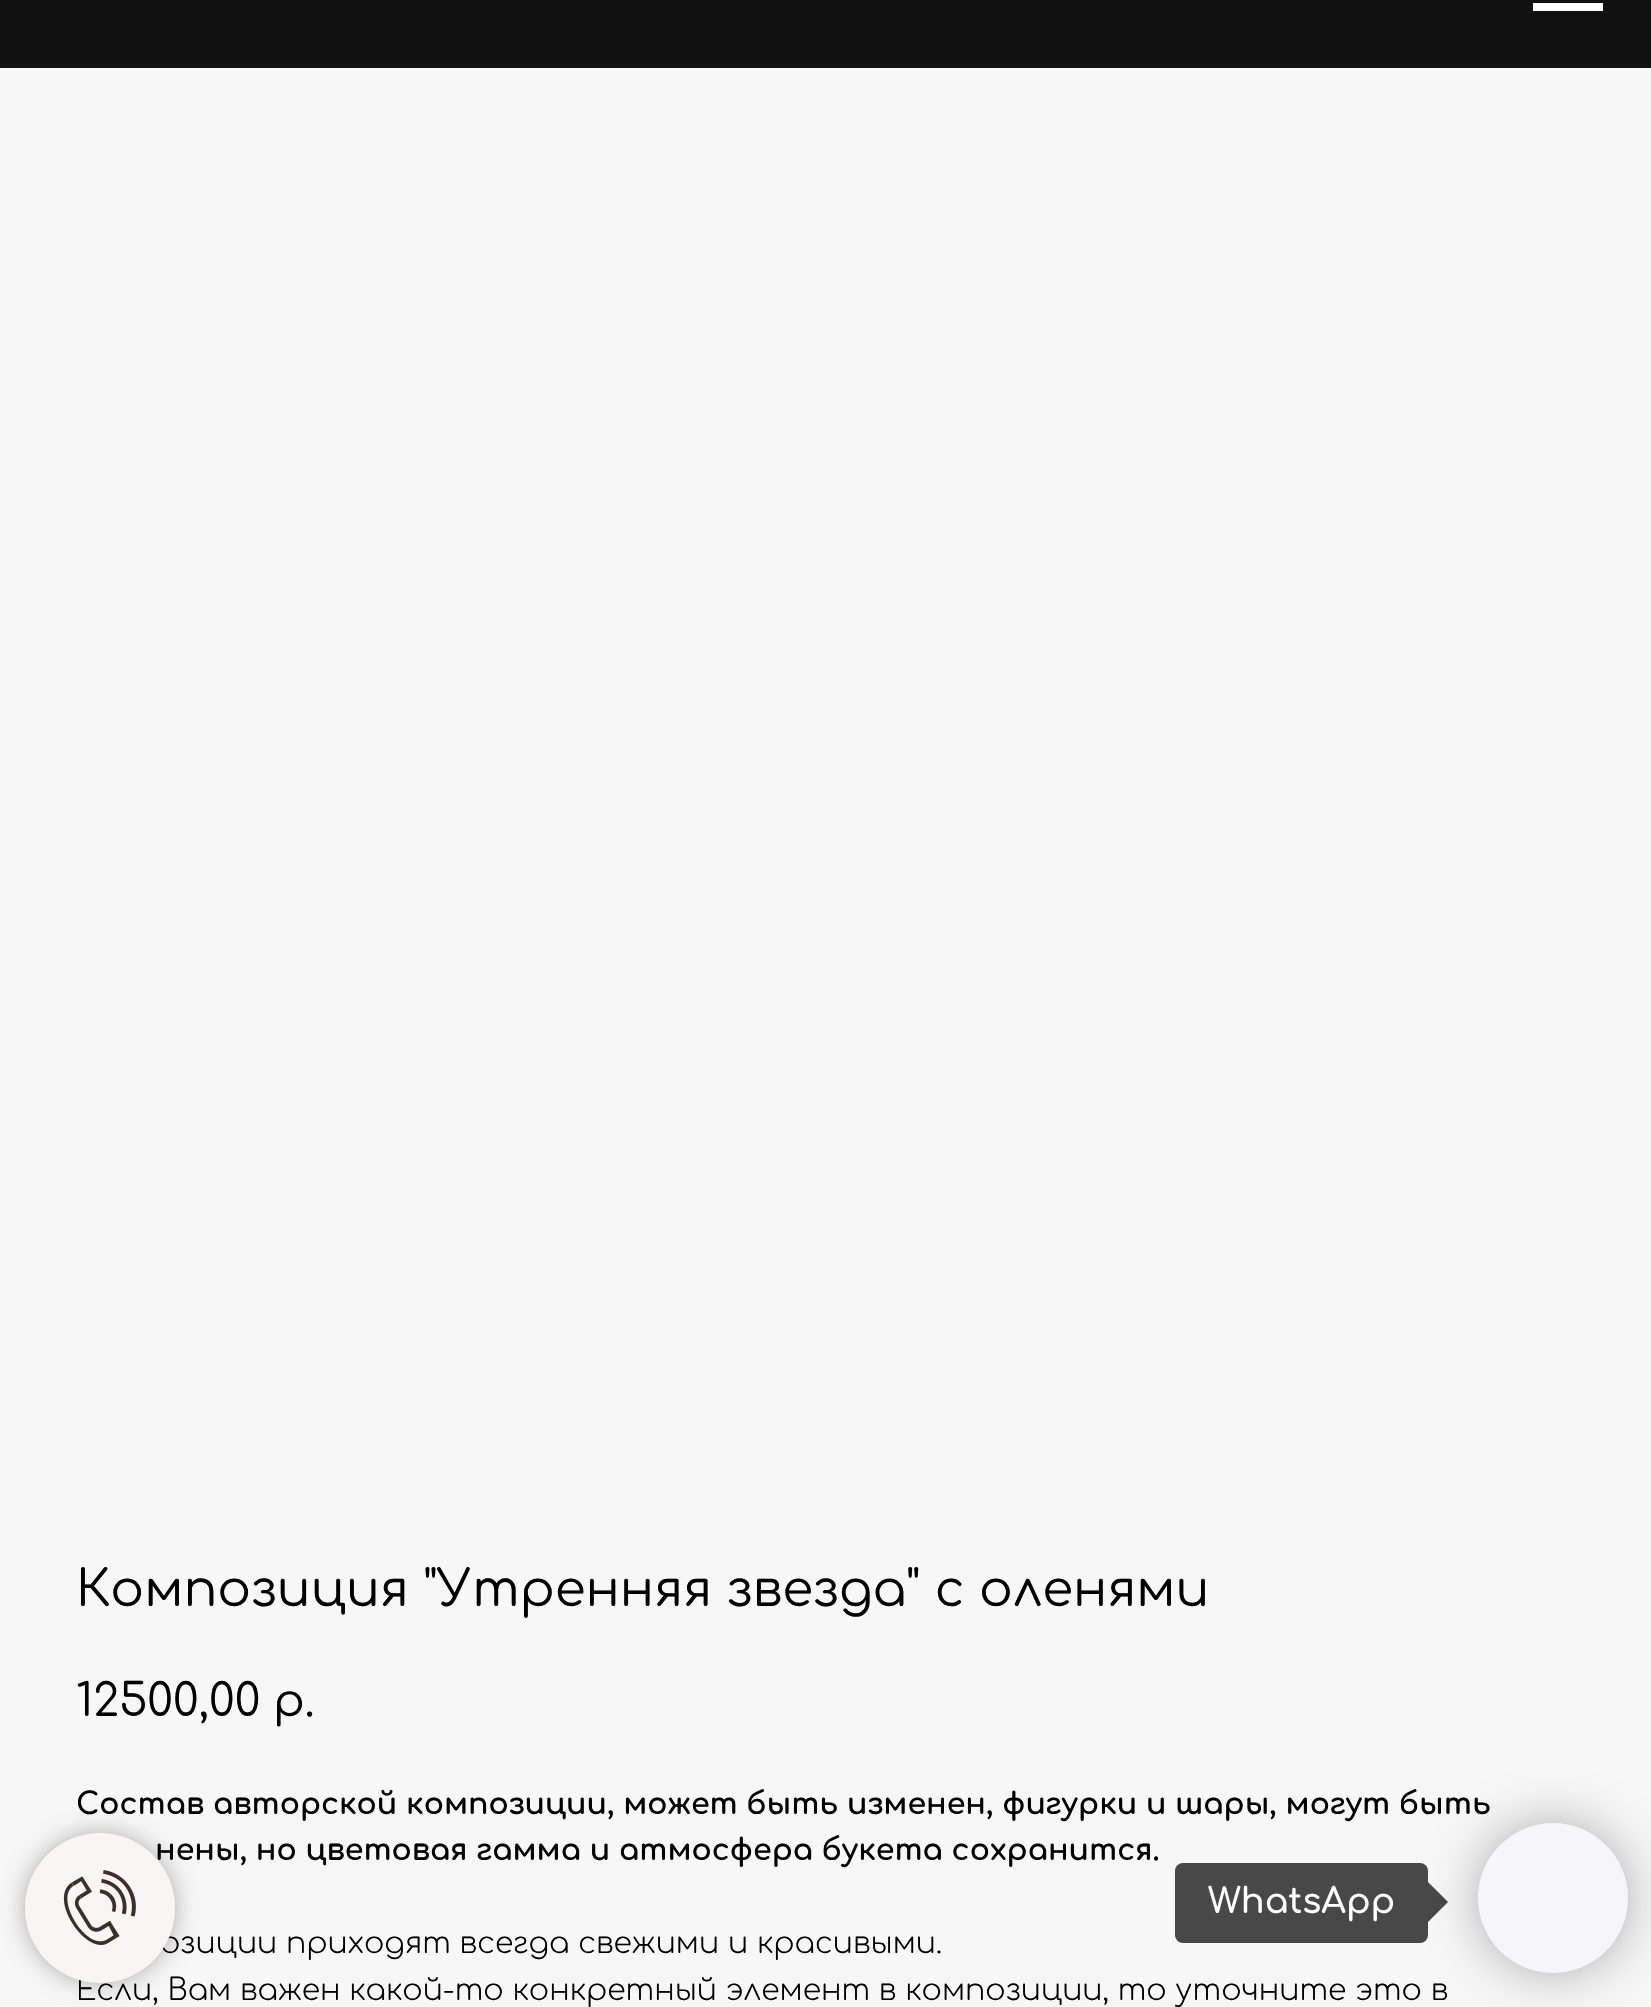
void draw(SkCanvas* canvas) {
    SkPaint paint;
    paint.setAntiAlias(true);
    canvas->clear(0xFFF7F7F7);
    SkFont font1(fontMgr->matchFamilyStyle("Comfortaa", SkFontStyle::Normal()), 50);
    font1.setSubpixel(true);
    paint.setColor(0xFF000000);
    canvas->drawString("Композиция \"Утренняя звезда\" с оленями", 76, 1606, font1, paint);
    SkFont font2(fontMgr->matchFamilyStyle("Comfortaa", SkFontStyle::Normal()), 45);
    font2.setSubpixel(true);
    canvas->drawString("12500,00", 76, 1716, font2, paint);
    canvas->drawString("р.", 273, 1716, font2, paint);
    SkFont font3(fontMgr->matchFamilyStyle("Comfortaa", SkFontStyle::Bold()), 30);
    font3.setSubpixel(true);
    canvas->drawString("Состав авторской композиции, может быть изменен, фигурки и шары, могут быть", 76, 1814, font3, paint);
    canvas->drawString("нены, но цветовая гамма и атмосфера букета сохранится.", 155, 1860, font3, paint);
    SkFont font4(fontMgr->matchFamilyStyle("Comfortaa", SkFontStyle(300, SkFontStyle::kNormal_Width, SkFontStyle::kUpright_Slant)), 30);
    font4.setSubpixel(true);
    canvas->drawString("озиции приходят всегда свежими и красивыми.", 160, 1953, font4, paint);
    canvas->drawString("Если, Вам важен какой-то конкретный элемент в композиции, то уточните это в", 76, 2000, font4, paint);
    paint.setColor(0xFF111111);
    canvas->drawRect(SkRect::MakeXYWH(0, 0, 1651, 68), paint);
    paint.setColor(0xFFFFFFFF);
    canvas->drawRect(SkRect::MakeXYWH(1533, 3, 70, 8), paint);
    paint.setColor(0x4D000000);
    paint.setMaskFilter(SkMaskFilter::MakeBlur(kNormal_SkBlurStyle, 12.5f));
    canvas->drawRoundRect(SkRect::MakeXYWH(25, 1833, 150, 150), 75, 75, paint);
    paint.setMaskFilter(nullptr);
    paint.setColor(0xFFFAF5F5);
    canvas->drawCircle(100, 1908, 75, paint);
    canvas->drawImageRect(SkImages::DeferredFromEncodedData(SkData::MakeFromFileName("img1.png")), SkRect::MakeXYWH(63, 1870, 73, 75), SkSamplingOptions());
    paint.setColor(0xFF484848);
    canvas->drawRoundRect(SkRect::MakeXYWH(1175, 1863, 253, 80), 8, 8, paint);
    SkFont font5(fontMgr->matchFamilyStyle("Comfortaa", SkFontStyle(600, SkFontStyle::kNormal_Width, SkFontStyle::kUpright_Slant)), 35);
    font5.setSubpixel(true);
    paint.setColor(0xFFFEFEFE);
    canvas->drawString("WhatsApp", 1208, 1913, font5, paint);
    paint.setColor(0xFF484848);
    canvas->drawPath(SkPathBuilder().moveTo(1428, 1922).lineTo(1428, 1882).lineTo(1448, 1902).close().detach(), paint);
    paint.setColor(0x4D000000);
    paint.setMaskFilter(SkMaskFilter::MakeBlur(kNormal_SkBlurStyle, 25));
    canvas->drawRoundRect(SkRect::MakeXYWH(1478, 1823, 150, 150), 75, 75, paint);
    paint.setMaskFilter(nullptr);
    paint.setColor(0xFFF5F5FA);
    canvas->drawCircle(1553, 1898, 75, paint);
}
